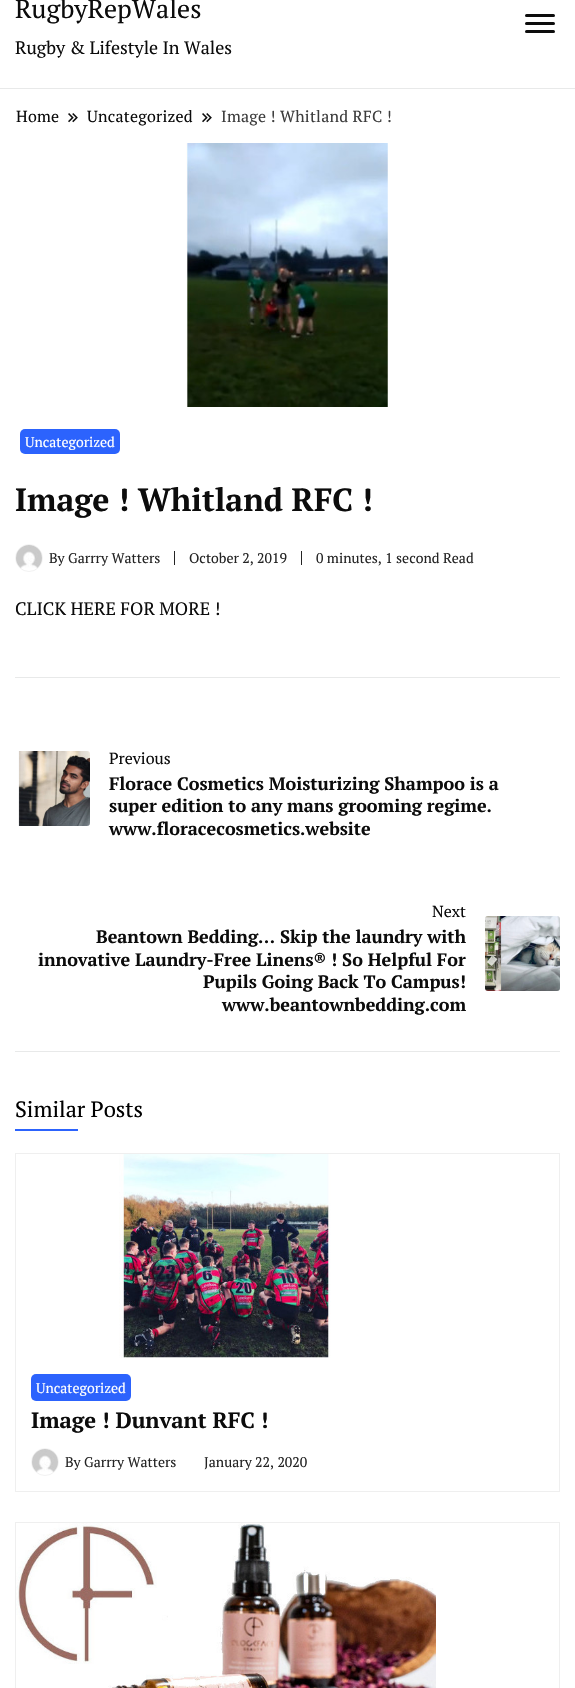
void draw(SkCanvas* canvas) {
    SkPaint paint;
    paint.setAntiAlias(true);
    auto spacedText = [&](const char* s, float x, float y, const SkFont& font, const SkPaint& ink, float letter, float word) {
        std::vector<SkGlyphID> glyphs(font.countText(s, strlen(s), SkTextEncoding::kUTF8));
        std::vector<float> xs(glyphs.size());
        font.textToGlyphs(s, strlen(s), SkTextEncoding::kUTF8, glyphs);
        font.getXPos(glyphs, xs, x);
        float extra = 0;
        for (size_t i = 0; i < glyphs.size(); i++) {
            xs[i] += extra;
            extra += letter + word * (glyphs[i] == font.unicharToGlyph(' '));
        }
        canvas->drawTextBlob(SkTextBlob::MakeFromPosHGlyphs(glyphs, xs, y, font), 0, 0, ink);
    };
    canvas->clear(0xFFFFFFFF);
    paint.setColor(0xFFE8E9E9);
    canvas->drawRect(SkRect::MakeXYWH(0, 88, 575, 1), paint);
    SkFont font1(fontMgr->matchFamilyStyle("PT Serif", SkFontStyle::Normal()), 26);
    font1.setSubpixel(true);
    paint.setColor(0xFF0C0C0C);
    canvas->drawString("RugbyRepWales", 15, 18, font1, paint);
    SkFont font2(fontMgr->matchFamilyStyle("PT Serif", SkFontStyle::Normal()), 18);
    font2.setSubpixel(true);
    canvas->drawString("Rugby & Lifestyle In Wales", 15, 54, font2, paint);
    canvas->drawRoundRect(SkRect::MakeXYWH(525, 14, 30, 3), 1.5f, 1.5f, paint);
    canvas->drawRoundRect(SkRect::MakeXYWH(525, 22, 30, 3), 1.5f, 1.5f, paint);
    canvas->drawRoundRect(SkRect::MakeXYWH(525, 30, 30, 3), 1.5f, 1.5f, paint);
    SkFont font3(fontMgr->matchFamilyStyle("PT Serif", SkFontStyle::Normal()), 16);
    font3.setSubpixel(true);
    spacedText("Home", 16, 122, font3, paint, 0.25f, 0);
    canvas->drawImageRect(SkImages::DeferredFromEncodedData(SkData::MakeFromFileName("img1.png")), SkRect::MakeXYWH(68, 113, 10, 10), SkSamplingOptions());
    spacedText("Uncategorized", 87, 122, font3, paint, 0.25f, 0);
    canvas->drawImageRect(SkImages::DeferredFromEncodedData(SkData::MakeFromFileName("img1.png")), SkRect::MakeXYWH(202, 113, 10, 10), SkSamplingOptions());
    paint.setColor(0xFF3D3D3D);
    spacedText("Image ! Whitland RFC !", 221, 122, font3, paint, 0.25f, 0);
    canvas->drawImageRect(SkImages::DeferredFromEncodedData(SkData::MakeFromFileName("img2.png")), SkRect::MakeXYWH(186, 143, 202, 264), SkSamplingOptions());
    paint.setColor(0xFF2C63FD);
    canvas->drawRoundRect(SkRect::MakeXYWH(20, 429, 100, 25), 5, 5, paint);
    SkFont font4(fontMgr->matchFamilyStyle("PT Serif", SkFontStyle::Normal()), 14);
    font4.setSubpixel(true);
    paint.setColor(0xFFFFFFFF);
    canvas->drawString("Uncategorized", 25, 447, font4, paint);
    SkFont font5(fontMgr->matchFamilyStyle("PT Serif", SkFontStyle::Bold()), 32);
    font5.setSubpixel(true);
    paint.setColor(0xFF0C0C0C);
    canvas->drawString("Image ! Whitland RFC !", 15, 511, font5, paint);
    paint.setStyle(SkPaint::kStroke_Style);
    paint.setStrokeWidth(1);
    paint.setColor(0xFFF2F2F2);
    canvas->drawCircle(29, 558, 13.5f, paint);
    canvas->drawImageRect(SkImages::DeferredFromEncodedData(SkData::MakeFromFileName("img3.png")), SkRect::MakeXYWH(16, 545, 26, 23), SkSamplingOptions());
    paint.setStyle(SkPaint::kFill_Style);
    paint.setColor(0xFF242424);
    canvas->drawString("By Garrry Watters", 49, 563, font4, paint);
    canvas->drawRect(SkRect::MakeXYWH(174, 551, 1, 14), paint);
    canvas->drawString("October 2, 2019", 189, 563, font4, paint);
    canvas->drawRect(SkRect::MakeXYWH(301, 551, 1, 14), paint);
    canvas->drawString("0 minutes, 1 second Read", 316, 563, font4, paint);
    paint.setColor(0xFF0C0C0C);
    canvas->drawString("CLICK HERE FOR MORE !", 15, 615, font2, paint);
    paint.setColor(0xFFE8E9E9);
    canvas->drawRect(SkRect::MakeXYWH(15, 677, 545, 1), paint);
    canvas->drawImageRect(SkImages::DeferredFromEncodedData(SkData::MakeFromFileName("img4.png")), SkRect::MakeXYWH(18, 751, 72, 75), SkSamplingOptions());
    paint.setColor(0xFF0C0C0C);
    canvas->drawString("Previous", 109, 764, font3, paint);
    SkFont font6(fontMgr->matchFamilyStyle("PT Serif", SkFontStyle::Bold()), 18);
    font6.setSubpixel(true);
    canvas->drawString("Florace Cosmetics Moisturizing Shampoo is a", 109, 790, font6, paint);
    canvas->drawString("super edition to any mans grooming regime.", 109, 812, font6, paint);
    canvas->drawString("www.floracecosmetics.website", 109, 835, font6, paint);
    canvas->drawString("Next", 432, 917, font3, paint);
    canvas->drawString("Beantown Bedding… Skip the laundry with", 96, 943, font6, paint);
    canvas->drawString("innovative Laundry-Free Linens® ! So Helpful For", 38, 966, font6, paint);
    canvas->drawString("Pupils Going Back To Campus!", 203, 988, font6, paint);
    canvas->drawString("www.beantownbedding.com", 222, 1011, font6, paint);
    canvas->drawImageRect(SkImages::DeferredFromEncodedData(SkData::MakeFromFileName("img5.png")), SkRect::MakeXYWH(485, 916, 75, 75), SkSamplingOptions());
    paint.setColor(0xFFE8E9E9);
    canvas->drawRect(SkRect::MakeXYWH(15, 1051, 545, 1), paint);
    SkFont font7(fontMgr->matchFamilyStyle("PT Serif", SkFontStyle::Normal()), 22);
    font7.setSubpixel(true);
    paint.setColor(0xFF000000);
    canvas->drawString("Similar Posts", 15, 1117, font7, paint);
    paint.setColor(0xFF2C63FD);
    canvas->drawRect(SkRect::MakeXYWH(15, 1129, 63, 2), paint);
    paint.setStyle(SkPaint::kStroke_Style);
    paint.setColor(0xFFEFEFEF);
    canvas->drawRect(SkRect::MakeXYWH(15.5f, 1153.5f, 544, 338), paint);
    canvas->drawImageRect(SkImages::DeferredFromEncodedData(SkData::MakeFromFileName("img6.png")), SkRect::MakeXYWH(119, 1154, 212, 204), SkSamplingOptions());
    paint.setStyle(SkPaint::kFill_Style);
    paint.setColor(0xFF2C63FD);
    canvas->drawRoundRect(SkRect::MakeXYWH(31, 1374, 100, 27), 5, 5, paint);
    paint.setColor(0xFFFFFFFF);
    canvas->drawString("Uncategorized", 36, 1393, font4, paint);
    SkFont font8(fontMgr->matchFamilyStyle("PT Serif", SkFontStyle::Bold()), 22);
    font8.setSubpixel(true);
    paint.setColor(0xFF0C0C0C);
    canvas->drawString("Image ! Dunvant RFC !", 31, 1428, font8, paint);
    paint.setStyle(SkPaint::kStroke_Style);
    paint.setColor(0xFFF2F2F2);
    canvas->drawCircle(45, 1462, 13.5f, paint);
    canvas->drawImageRect(SkImages::DeferredFromEncodedData(SkData::MakeFromFileName("img3.png")), SkRect::MakeXYWH(32, 1449, 26, 23), SkSamplingOptions());
    paint.setStyle(SkPaint::kFill_Style);
    paint.setColor(0xFF242424);
    canvas->drawString("By Garrry Watters", 65, 1467, font4, paint);
    canvas->drawString("January 22, 2020", 204, 1467, font4, paint);
    paint.setStyle(SkPaint::kStroke_Style);
    paint.setColor(0xFFEFEFEF);
    canvas->drawRect(SkRect::MakeXYWH(15.5f, 1522.5f, 544, 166), paint);
    canvas->drawImageRect(SkImages::DeferredFromEncodedData(SkData::MakeFromFileName("img7.png")), SkRect::MakeXYWH(16, 1523, 420, 165), SkSamplingOptions());
}
